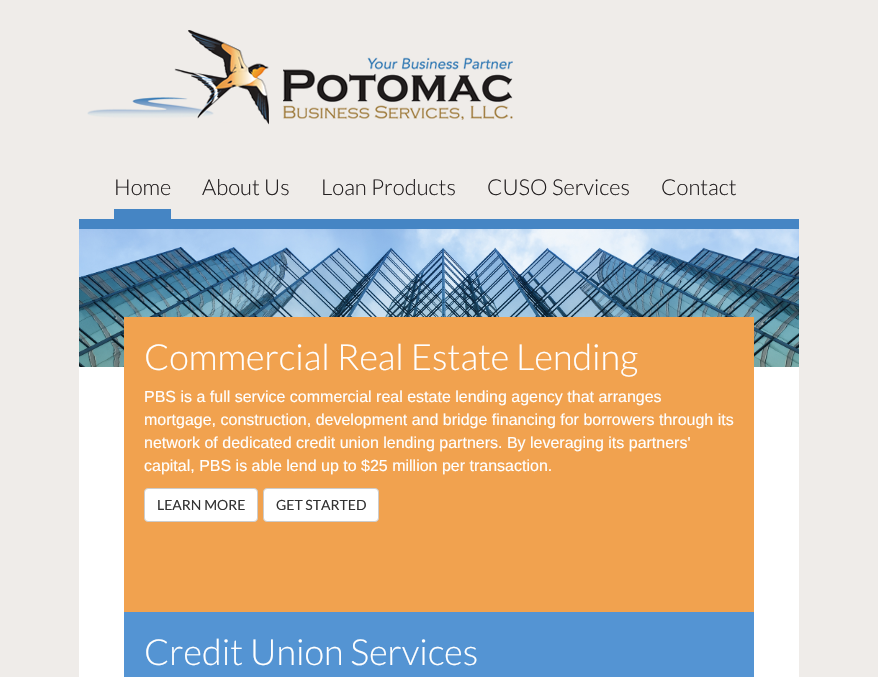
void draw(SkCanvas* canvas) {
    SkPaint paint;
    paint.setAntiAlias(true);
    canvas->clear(0xFFEFECE9);
    canvas->drawImageRect(SkImages::DeferredFromEncodedData(SkData::MakeFromFileName("img1.png")), SkRect::MakeXYWH(87, 30, 426, 95), SkSamplingOptions());
    paint.setColor(0xFF4585C4);
    canvas->drawRect(SkRect::MakeXYWH(114, 209, 57, 10), paint);
    SkFont font1(fontMgr->matchFamilyStyle("Lato", SkFontStyle(300, SkFontStyle::kNormal_Width, SkFontStyle::kUpright_Slant)), 22);
    font1.setSubpixel(true);
    paint.setColor(0xFF231F20);
    canvas->drawString("Home", 114, 195, font1, paint);
    canvas->drawString("About Us", 202, 195, font1, paint);
    canvas->drawString("Loan Products", 321, 195, font1, paint);
    canvas->drawString("CUSO Services", 487, 195, font1, paint);
    canvas->drawString("Contact", 661, 195, font1, paint);
    paint.setColor(0xFFFFFFFF);
    canvas->drawRect(SkRect::MakeXYWH(79, 367, 720, 310), paint);
    paint.setColor(0xFF4585C4);
    canvas->drawRect(SkRect::MakeXYWH(79, 219, 720, 10), paint);
    canvas->drawImageRect(SkImages::DeferredFromEncodedData(SkData::MakeFromFileName("img2.png")), SkRect::MakeXYWH(79, 229, 720, 138), SkSamplingOptions());
    paint.setColor(0xFFF1A24F);
    canvas->drawRect(SkRect::MakeXYWH(124, 317, 630, 295), paint);
    SkFont font2(fontMgr->matchFamilyStyle("Lato", SkFontStyle(300, SkFontStyle::kNormal_Width, SkFontStyle::kUpright_Slant)), 36);
    font2.setSubpixel(true);
    paint.setColor(0xFFFFFFFF);
    canvas->drawString("Commercial Real Estate Lending", 144, 370, font2, paint);
    SkFont font3(fontMgr->matchFamilyStyle("Liberation Sans", SkFontStyle::Normal()), 16);
    font3.setSubpixel(true);
    canvas->drawString("PBS is a full service commercial real estate lending agency that arranges", 144, 402, font3, paint);
    canvas->drawString("mortgage, construction, development and bridge financing for borrowers through its", 144, 425, font3, paint);
    canvas->drawString("network of dedicated credit union lending partners. By leveraging its partners'", 144, 448, font3, paint);
    canvas->drawString("capital, PBS is able lend up to $25 million per transaction.", 144, 471, font3, paint);
    canvas->drawRoundRect(SkRect::MakeXYWH(144.5f, 488.5f, 113, 33), 3.5f, 3.5f, paint);
    paint.setStyle(SkPaint::kStroke_Style);
    paint.setStrokeWidth(1);
    paint.setColor(0xFFCCCCCC);
    canvas->drawRoundRect(SkRect::MakeXYWH(144.5f, 488.5f, 113, 33), 3.5f, 3.5f, paint);
    SkFont font4(fontMgr->matchFamilyStyle("Lato", SkFontStyle::Normal()), 14);
    font4.setSubpixel(true);
    paint.setStyle(SkPaint::kFill_Style);
    paint.setColor(0xFF333333);
    canvas->drawString("LEARN MORE", 157, 510, font4, paint);
    paint.setColor(0xFFFFFFFF);
    canvas->drawRoundRect(SkRect::MakeXYWH(263.5f, 488.5f, 115, 33), 3.5f, 3.5f, paint);
    paint.setStyle(SkPaint::kStroke_Style);
    paint.setColor(0xFFCCCCCC);
    canvas->drawRoundRect(SkRect::MakeXYWH(263.5f, 488.5f, 115, 33), 3.5f, 3.5f, paint);
    paint.setStyle(SkPaint::kFill_Style);
    paint.setColor(0xFF333333);
    canvas->drawString("GET STARTED", 276, 510, font4, paint);
    paint.setColor(0xFF5494D3);
    canvas->drawRect(SkRect::MakeXYWH(124, 612, 630, 65), paint);
    paint.setColor(0xFFFFFFFF);
    canvas->drawString("Credit Union Services", 144, 665, font2, paint);
}
